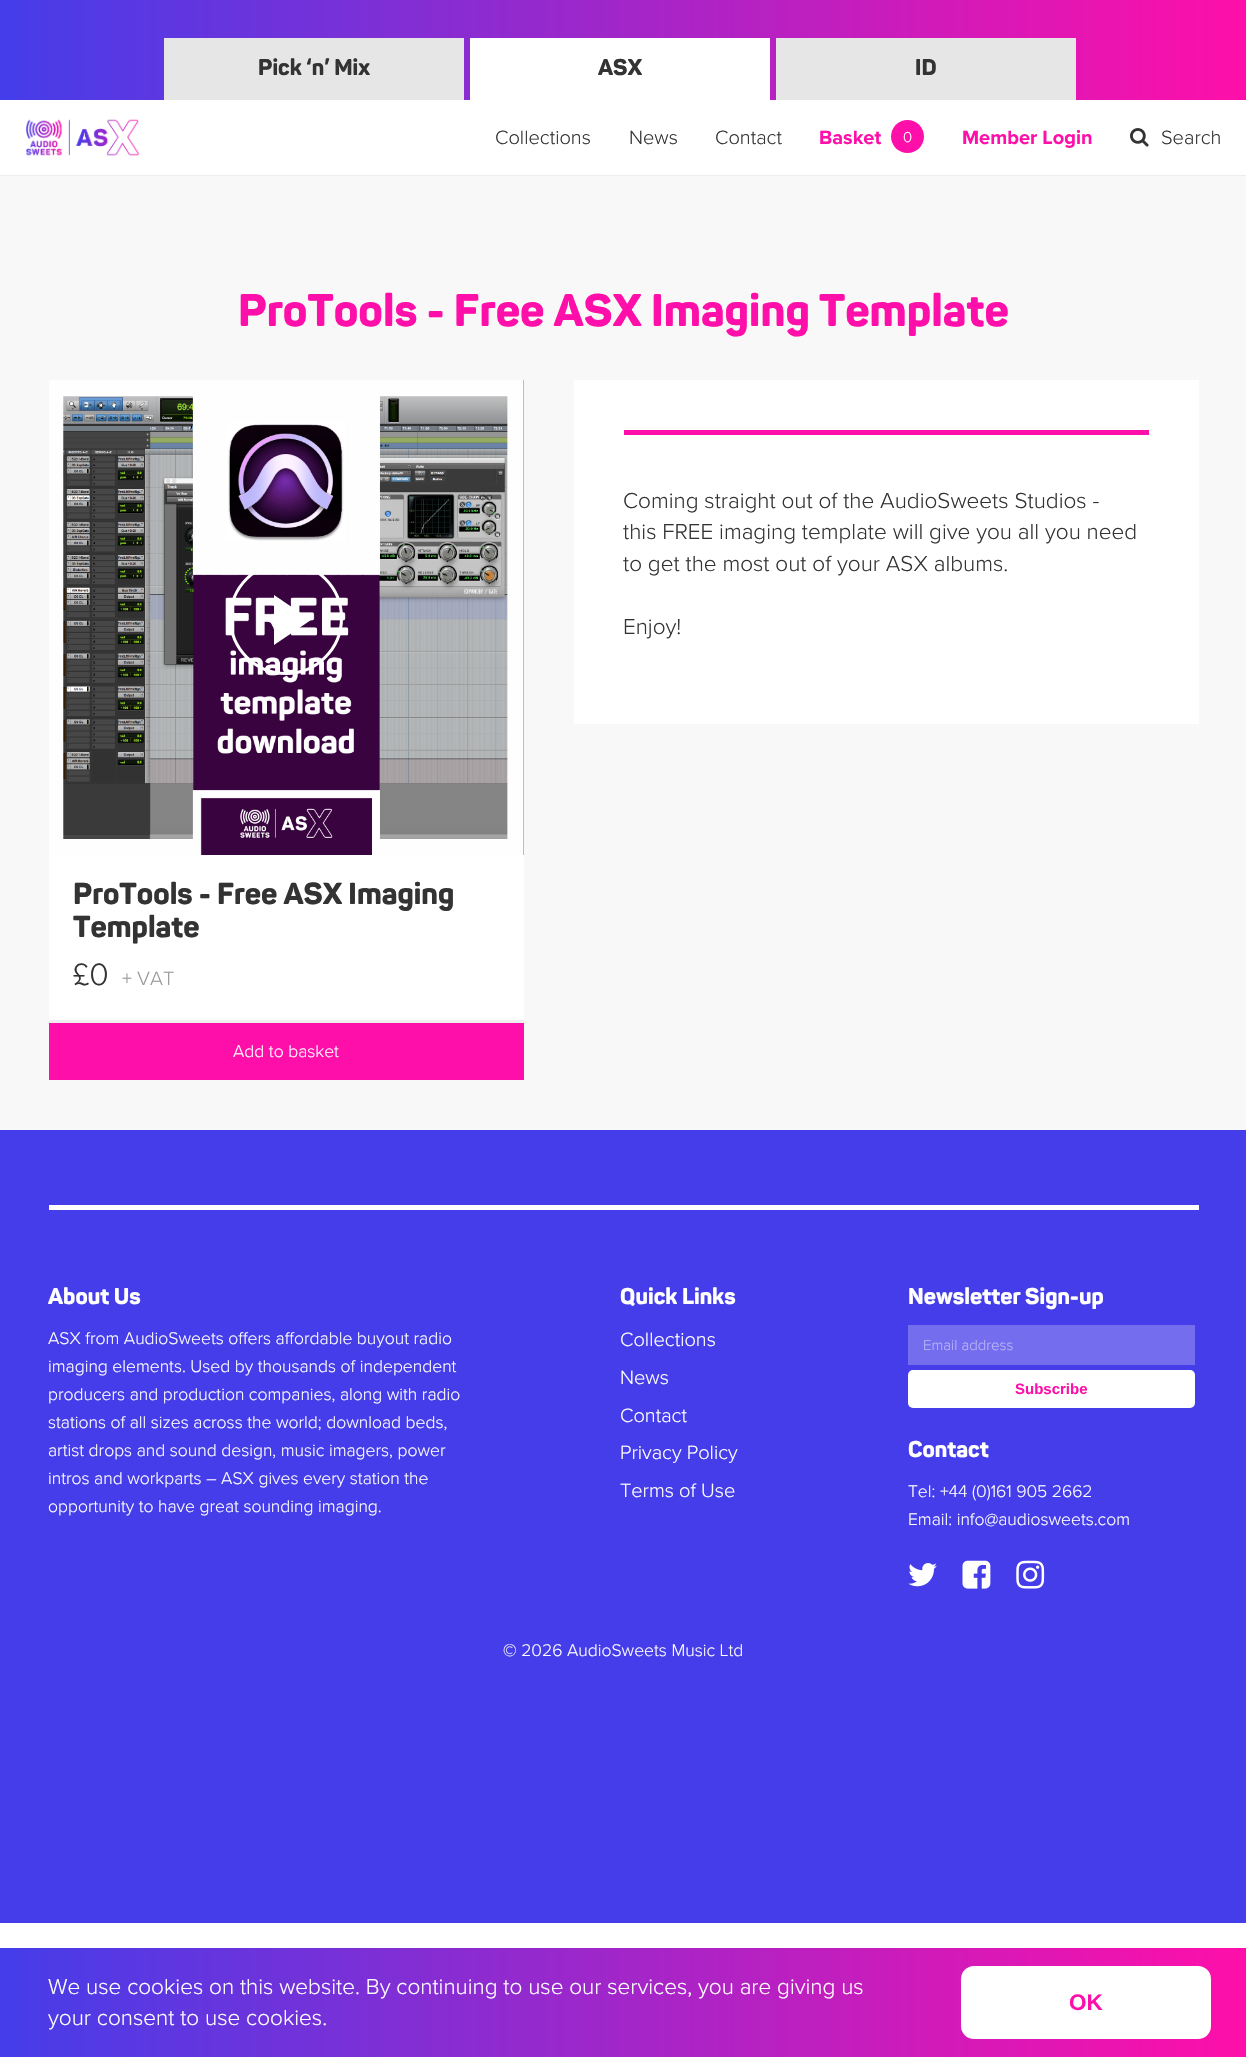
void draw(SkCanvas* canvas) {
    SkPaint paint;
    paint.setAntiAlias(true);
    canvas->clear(0xFF453DE9);
    paint.setColor(0xFFEEEEEE);
    canvas->drawRect(SkRect::MakeXYWH(0, 175, 1246, 1), paint);
    {
        const SkColor colors[] = {0xFF453DE9, 0xFFFF0FA9};
        const float stops[] = {0, 1};
        const SkPoint ends[] = {{0, 50}, {1246, 50}};
        paint.setShader(SkGradientShader::MakeLinear(ends, colors, stops, 2, SkTileMode::kClamp));
        paint.setAlpha(255);
    }
    canvas->drawRect(SkRect::MakeXYWH(17, 0, 1229, 100), paint);
    paint.setShader(nullptr);
    paint.setColor(0xFFE6E6E6);
    canvas->drawRect(SkRect::MakeXYWH(164, 38, 300, 62), paint);
    SkFont font1(fontMgr->matchFamilyStyle("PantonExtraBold", SkFontStyle::Normal()), 22.5f);
    font1.setSubpixel(true);
    paint.setColor(0xFF333333);
    canvas->drawString("Pick ‘n’ Mix", 258, 75, font1, paint);
    paint.setColor(0xFFFFFFFF);
    canvas->drawRect(SkRect::MakeXYWH(470, 38, 300, 62), paint);
    paint.setColor(0xFF333333);
    canvas->drawString("ASX", 598, 75, font1, paint);
    paint.setColor(0xFFE6E6E6);
    canvas->drawRect(SkRect::MakeXYWH(776, 38, 300, 62), paint);
    paint.setColor(0xFF333333);
    canvas->drawString("ID", 915, 75, font1, paint);
    paint.setColor(0xFFFFFFFF);
    canvas->drawRect(SkRect::MakeXYWH(0, 100, 1246, 75), paint);
    canvas->drawImageRect(SkImages::DeferredFromEncodedData(SkData::MakeFromFileName("img1.png")), SkRect::MakeXYWH(26, 119, 114, 37), SkSamplingOptions());
    SkFont font2(fontMgr->matchFamilyStyle("Proxima Nova", SkFontStyle(300, SkFontStyle::kNormal_Width, SkFontStyle::kUpright_Slant)), 20);
    font2.setSubpixel(true);
    paint.setColor(0xFF333333);
    canvas->drawString("Collections", 495, 144, font2, paint);
    canvas->drawString("News", 629, 144, font2, paint);
    canvas->drawString("Contact", 715, 144, font2, paint);
    SkFont font3(fontMgr->matchFamilyStyle("Proxima Nova", SkFontStyle::Bold()), 20);
    font3.setSubpixel(true);
    paint.setColor(0xFFFF0FA9);
    canvas->drawString("Basket", 819, 144, font3, paint);
    canvas->drawCircle(907.5f, 136.5f, 16.5f, paint);
    SkFont font4(fontMgr->matchFamilyStyle("Proxima Nova", SkFontStyle(300, SkFontStyle::kNormal_Width, SkFontStyle::kUpright_Slant)), 15);
    font4.setSubpixel(true);
    paint.setColor(0xFFFFFFFF);
    canvas->drawString("0", 903, 142, font4, paint);
    paint.setColor(0xFFFF0FA9);
    canvas->drawString("Member Login", 962, 144, font3, paint);
    canvas->drawImageRect(SkImages::DeferredFromEncodedData(SkData::MakeFromFileName("img2.png")), SkRect::MakeXYWH(1130, 128, 19, 19), SkSamplingOptions());
    paint.setColor(0xFF333333);
    canvas->drawString("Search", 1161, 144, font2, paint);
    paint.setColor(0xFFF8F8F8);
    canvas->drawRect(SkRect::MakeXYWH(0, 176, 1246, 954), paint);
    SkFont font5(fontMgr->matchFamilyStyle("PantonExtraBold", SkFontStyle::Normal()), 45);
    font5.setSubpixel(true);
    paint.setColor(0xFFFF0FA9);
    canvas->drawString("ProTools - Free ASX Imaging Template", 238, 326, font5, paint);
    paint.setColor(0xFFFFFFFF);
    canvas->drawRect(SkRect::MakeXYWH(574, 380, 625, 344), paint);
    paint.setColor(0xFFFF0FA9);
    canvas->drawRect(SkRect::MakeXYWH(624, 430, 525, 5), paint);
    SkFont font6(fontMgr->matchFamilyStyle("Proxima Nova", SkFontStyle(300, SkFontStyle::kNormal_Width, SkFontStyle::kUpright_Slant)), 22.5f);
    font6.setSubpixel(true);
    paint.setColor(0xFF333333);
    canvas->drawString("Coming straight out of the AudioSweets Studios -", 623, 508, font6, paint);
    canvas->drawString("this FREE imaging template will give you all you need", 623, 539, font6, paint);
    canvas->drawString("to get the most out of your ASX albums.", 623, 571, font6, paint);
    canvas->drawString("Enjoy!", 623, 634, font6, paint);
    paint.setColor(0xFFFFFFFF);
    canvas->drawRect(SkRect::MakeXYWH(49, 855, 475, 165), paint);
    paint.setColor(0xFFFF0FA9);
    canvas->drawRect(SkRect::MakeXYWH(523, 380, 1, 475), paint);
    canvas->drawImageRect(SkImages::DeferredFromEncodedData(SkData::MakeFromFileName("img3.png")), SkRect::MakeXYWH(49, 380, 475, 475), SkSamplingOptions());
    paint.setStyle(SkPaint::kStroke_Style);
    paint.setStrokeWidth(3);
    paint.setColor(0xFFFFFFFF);
    canvas->drawCircle(286, 618, 55.5f, paint);
    paint.setStyle(SkPaint::kFill_Style);
    canvas->drawPath(SkPathBuilder().moveTo(274, 645).lineTo(274, 595).lineTo(311, 620).close().detach(), paint);
    SkFont font7(fontMgr->matchFamilyStyle("PantonExtraBold", SkFontStyle::Normal()), 30);
    font7.setSubpixel(true);
    paint.setColor(0xFF333333);
    canvas->drawString("ProTools - Free ASX Imaging", 73, 904, font7, paint);
    canvas->drawString("Template", 73, 937, font7, paint);
    SkFont font8(fontMgr->matchFamilyStyle("Proxima Nova", SkFontStyle(300, SkFontStyle::kNormal_Width, SkFontStyle::kUpright_Slant)), 32);
    font8.setSubpixel(true);
    canvas->drawString("£0", 73, 985, font8, paint);
    paint.setColor(0xFF999999);
    canvas->drawString("+ VAT", 122, 985, font2, paint);
    paint.setColor(0xFFEEEEEE);
    canvas->drawRect(SkRect::MakeXYWH(49, 1020, 475, 3), paint);
    paint.setColor(0xFFFF0FA9);
    canvas->drawRect(SkRect::MakeXYWH(49, 1023, 475, 57), paint);
    SkFont font9(fontMgr->matchFamilyStyle("Proxima Nova", SkFontStyle(300, SkFontStyle::kNormal_Width, SkFontStyle::kUpright_Slant)), 17.5f);
    font9.setSubpixel(true);
    paint.setColor(0xFFFFFFFF);
    canvas->drawString("Add to basket", 233, 1057, font9, paint);
    canvas->drawRect(SkRect::MakeXYWH(49, 1205, 1150, 5), paint);
    canvas->drawString("About Us", 48, 1304, font1, paint);
    canvas->drawString("ASX from AudioSweets offers affordable buyout radio", 48, 1344, font9, paint);
    canvas->drawString("imaging elements. Used by thousands of independent", 48, 1372, font9, paint);
    canvas->drawString("producers and production companies, along with radio", 48, 1400, font9, paint);
    canvas->drawString("stations of all sizes across the world; download beds,", 48, 1428, font9, paint);
    canvas->drawString("artist drops and sound design, music imagers, power", 48, 1456, font9, paint);
    canvas->drawString("intros and workparts – ASX gives every station the", 48, 1484, font9, paint);
    canvas->drawString("opportunity to have great sounding imaging.", 48, 1512, font9, paint);
    canvas->drawString("Quick Links", 620, 1304, font1, paint);
    canvas->drawString("Collections", 620, 1346, font2, paint);
    canvas->drawString("News", 620, 1384, font2, paint);
    canvas->drawString("Contact", 620, 1422, font2, paint);
    canvas->drawString("Privacy Policy", 620, 1459, font2, paint);
    canvas->drawString("Terms of Use", 620, 1497, font2, paint);
    canvas->drawString("Newsletter Sign-up", 908, 1304, font1, paint);
    paint.setColor(0xFF746EEF);
    canvas->drawRect(SkRect::MakeXYWH(908, 1325, 287, 40), paint);
    paint.setColor(0xFFBAB7F7);
    canvas->drawString("Email address", 923, 1350, font4, paint);
    paint.setColor(0xFFFFFFFF);
    canvas->drawRoundRect(SkRect::MakeXYWH(908, 1370, 287, 38), 5, 5, paint);
    SkFont font10(fontMgr->matchFamilyStyle("Liberation Sans", SkFontStyle::Bold()), 15);
    font10.setSubpixel(true);
    paint.setColor(0xFFFF0FA9);
    canvas->drawString("Subscribe", 1015, 1394, font10, paint);
    paint.setColor(0xFFFFFFFF);
    canvas->drawString("Contact", 908, 1457, font1, paint);
    canvas->drawString("Tel: +44 (0)161 905 2662", 908, 1497, font9, paint);
    canvas->drawString("Email: info@audiosweets.com", 908, 1525, font9, paint);
    canvas->drawImageRect(SkImages::DeferredFromEncodedData(SkData::MakeFromFileName("img4.png")), SkRect::MakeXYWH(908, 1563, 29, 24), SkSamplingOptions());
    canvas->drawImageRect(SkImages::DeferredFromEncodedData(SkData::MakeFromFileName("img5.png")), SkRect::MakeXYWH(962, 1560, 29, 29), SkSamplingOptions());
    canvas->drawImageRect(SkImages::DeferredFromEncodedData(SkData::MakeFromFileName("img6.png")), SkRect::MakeXYWH(1016, 1560, 29, 29), SkSamplingOptions());
    canvas->drawString("© 2026 AudioSweets Music Ltd", 503, 1656, font9, paint);
    canvas->drawRect(SkRect::MakeXYWH(0, 1923, 1246, 25), paint);
    {
        const SkColor colors[] = {0xFF453DE9, 0xFFFF0FA9};
        const float stops[] = {0, 1};
        const SkPoint ends[] = {{0, 2015}, {1246, 2015}};
        paint.setShader(SkGradientShader::MakeLinear(ends, colors, stops, 2, SkTileMode::kClamp));
        paint.setAlpha(255);
    }
    canvas->drawRect(SkRect::MakeXYWH(17, 1948, 1229, 109), paint);
    paint.setShader(nullptr);
    paint.setColor(0xFFFFFFFF);
    canvas->drawString("We use cookies on this website. By continuing to use our services, you are giving us", 48, 1994, font6, paint);
    canvas->drawRoundRect(SkRect::MakeXYWH(961, 1966, 250, 73), 13, 13, paint);
    SkFont font11(fontMgr->matchFamilyStyle("Liberation Sans", SkFontStyle::Bold()), 22.5f);
    font11.setSubpixel(true);
    paint.setColor(0xFFFF0FA9);
    canvas->drawString("OK", 1069, 2010, font11, paint);
    paint.setColor(0xFFFFFFFF);
    canvas->drawString("your consent to use cookies.", 48, 2025, font6, paint);
}
